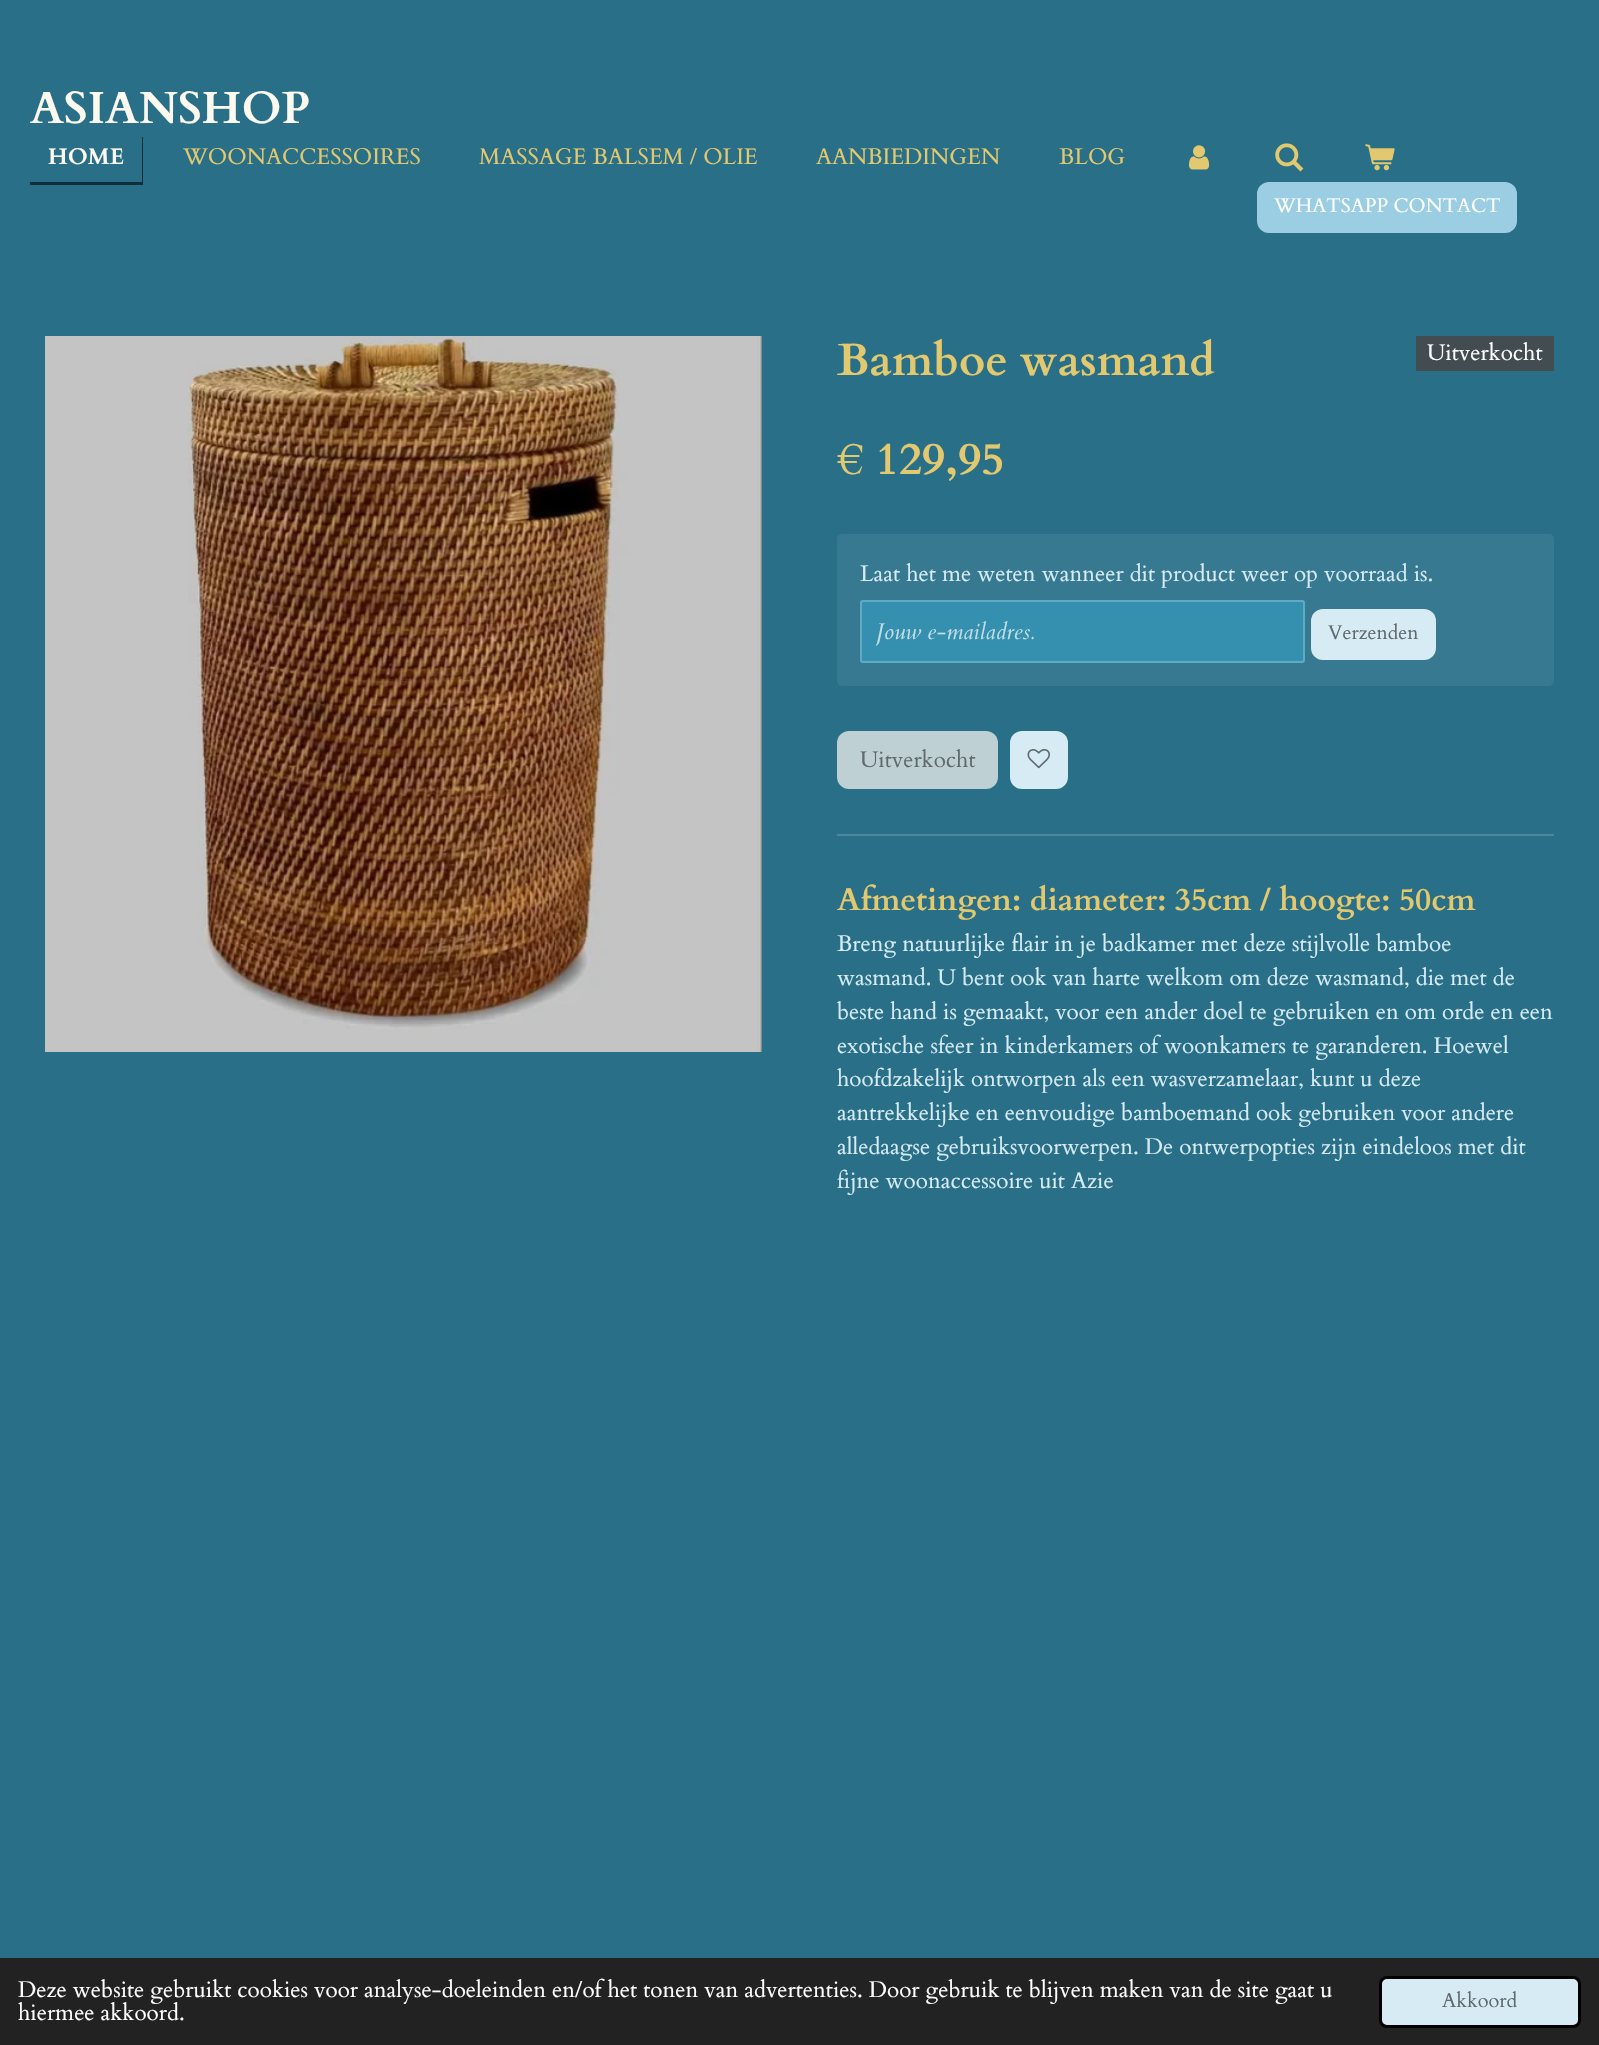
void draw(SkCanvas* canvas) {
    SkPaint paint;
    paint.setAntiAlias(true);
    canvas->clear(0xFF296F87);
    SkFont font1(fontMgr->matchFamilyStyle("Cardo", SkFontStyle::Bold()), 45);
    font1.setSubpixel(true);
    paint.setColor(0xFFFCF9EE);
    canvas->drawString("ASIANSHOP", 30, 123, font1, paint);
    paint.setColor(0xFF112F39);
    canvas->drawPath(SkPathBuilder().moveTo(30, 182).lineTo(30, 185).lineTo(143, 185).lineTo(143, 137).lineTo(142, 137).lineTo(142, 182).close().detach(), paint);
    SkFont font2(fontMgr->matchFamilyStyle("Cardo", SkFontStyle::Bold()), 22.5f);
    font2.setSubpixel(true);
    paint.setColor(0xFFFCF9EE);
    canvas->drawString("HOME", 48, 164, font2, paint);
    SkFont font3(fontMgr->matchFamilyStyle("Cardo", SkFontStyle::Normal()), 22.5f);
    font3.setSubpixel(true);
    paint.setColor(0xFFE2C86F);
    canvas->drawString("WOONACCESSOIRES", 183, 164, font3, paint);
    canvas->drawString("MASSAGE BALSEM / OLIE", 479, 164, font3, paint);
    canvas->drawString("AANBIEDINGEN", 816, 164, font3, paint);
    canvas->drawString("BLOG", 1059, 164, font3, paint);
    canvas->drawImageRect(SkImages::DeferredFromEncodedData(SkData::MakeFromFileName("img1.png")), SkRect::MakeXYWH(1189, 145, 21, 25), SkSamplingOptions());
    canvas->drawImageRect(SkImages::DeferredFromEncodedData(SkData::MakeFromFileName("img2.png")), SkRect::MakeXYWH(1275, 143, 29, 29), SkSamplingOptions());
    canvas->drawImageRect(SkImages::DeferredFromEncodedData(SkData::MakeFromFileName("img3.png")), SkRect::MakeXYWH(1365, 144, 30, 27), SkSamplingOptions());
    paint.setColor(0xFF9BCEE2);
    canvas->drawRoundRect(SkRect::MakeXYWH(1257, 182, 260, 51), 12, 12, paint);
    SkFont font4(fontMgr->matchFamilyStyle("Cardo", SkFontStyle::Normal()), 19.75f);
    font4.setSubpixel(true);
    paint.setColor(0xFFFFFFFF);
    canvas->drawString("WHATSAPP CONTACT", 1274, 212, font4, paint);
    canvas->drawImageRect(SkImages::DeferredFromEncodedData(SkData::MakeFromFileName("img4.png")), SkRect::MakeXYWH(45, 336, 717, 716), SkSamplingOptions());
    paint.setColor(0xFFE2C86F);
    canvas->drawString("Bamboe wasmand", 837, 375, font1, paint);
    paint.setColor(0xFF424C51);
    canvas->drawRect(SkRect::MakeXYWH(1416, 336, 138, 35), paint);
    paint.setColor(0xFFFFFFFF);
    canvas->drawString("Uitverkocht", 1427, 360, font3, paint);
    paint.setColor(0xFFE2C86F);
    canvas->drawString("€ 129,95", 837, 474, font1, paint);
    paint.setColor(0xFF377990);
    canvas->drawRoundRect(SkRect::MakeXYWH(837, 534, 717, 152), 5, 5, paint);
    paint.setColor(0xFFD6EBF3);
    canvas->drawString("Laat het me weten wanneer dit product weer op voorraad is.", 860, 581, font3, paint);
    paint.setColor(0xFF358FAE);
    canvas->drawRoundRect(SkRect::MakeXYWH(860, 600, 445, 63), 3, 3, paint);
    paint.setStyle(SkPaint::kStroke_Style);
    paint.setStrokeWidth(2);
    paint.setColor(0x8088C6DB);
    canvas->drawRoundRect(SkRect::MakeXYWH(861, 601, 443, 61), 2, 2, paint);
    canvas->save();
    canvas->clipRect(SkRect::MakeXYWH(876, 617, 413, 30));
    SkFont font5(fontMgr->matchFamilyStyle("Cardo", SkFontStyle::Italic()), 22.5f);
    font5.setSubpixel(true);
    paint.setStyle(SkPaint::kFill_Style);
    paint.setColor(0xFFC1DDE6);
    canvas->drawString("Jouw e-mailadres.", 876, 639, font5, paint);
    canvas->restore();
    paint.setColor(0xFFD6EBF3);
    canvas->drawRoundRect(SkRect::MakeXYWH(1311, 609, 125, 51), 12, 12, paint);
    paint.setColor(0xFF606A6D);
    canvas->drawString("Verzenden", 1328, 639, font4, paint);
    paint.setColor(0xFFBFD0D5);
    canvas->drawRoundRect(SkRect::MakeXYWH(837, 731, 161, 58), 12, 12, paint);
    paint.setColor(0xFF606A6D);
    canvas->drawString("Uitverkocht", 860, 767, font3, paint);
    paint.setColor(0xFFD6EBF3);
    canvas->drawRoundRect(SkRect::MakeXYWH(1010, 731, 58, 58), 12, 12, paint);
    canvas->drawImageRect(SkImages::DeferredFromEncodedData(SkData::MakeFromFileName("img5.png")), SkRect::MakeXYWH(1027, 749, 23, 20), SkSamplingOptions());
    paint.setColor(0xFF4C889D);
    canvas->drawRect(SkRect::MakeXYWH(837, 834, 717, 2), paint);
    SkFont font6(fontMgr->matchFamilyStyle("Cardo", SkFontStyle::Bold()), 31.5f);
    font6.setSubpixel(true);
    paint.setColor(0xFFE2C86F);
    canvas->drawString("Afmetingen: diameter: 35cm / hoogte: 50cm", 837, 910, font6, paint);
    paint.setColor(0xFFD6EBF3);
    canvas->drawString("Breng natuurlijke flair in je badkamer met deze stijlvolle bamboe", 837, 951, font3, paint);
    canvas->drawString("wasmand. U bent ook van harte welkom om deze wasmand, die met de", 837, 985, font3, paint);
    canvas->drawString("beste hand is gemaakt, voor een ander doel te gebruiken en om orde en een", 837, 1019, font3, paint);
    canvas->drawString("exotische sfeer in kinderkamers of woonkamers te garanderen. Hoewel", 837, 1053, font3, paint);
    canvas->drawString("hoofdzakelijk ontworpen als een wasverzamelaar, kunt u deze", 837, 1086, font3, paint);
    canvas->drawString("aantrekkelijke en eenvoudige bamboemand ook gebruiken voor andere", 837, 1120, font3, paint);
    canvas->drawString("alledaagse gebruiksvoorwerpen. De ontwerpopties zijn eindeloos met dit", 837, 1154, font3, paint);
    canvas->drawString("fijne woonaccessoire uit Azie", 837, 1188, font3, paint);
    paint.setColor(0xFF222222);
    canvas->drawRect(SkRect::MakeXYWH(0, 1958, 1599, 87), paint);
    paint.setColor(0xFFFFFFFF);
    canvas->drawString("Deze website gebruikt cookies voor analyse-doeleinden en/of het tonen van advertenties. Door gebruik te blijven maken van de site gaat u", 18, 1997, font3, paint);
    canvas->drawString("hiermee akkoord.", 18, 2020, font3, paint);
    paint.setColor(0xFFD6EBF3);
    canvas->drawRoundRect(SkRect::MakeXYWH(1380.5f, 1977.5f, 199, 49), 6.5f, 6.5f, paint);
    paint.setStyle(SkPaint::kStroke_Style);
    paint.setStrokeWidth(3);
    paint.setColor(0xFF000000);
    canvas->drawRoundRect(SkRect::MakeXYWH(1380.5f, 1977.5f, 199, 49), 6.5f, 6.5f, paint);
    SkFont font7(fontMgr->matchFamilyStyle("Cardo", SkFontStyle::Normal()), 20);
    font7.setSubpixel(true);
    paint.setStyle(SkPaint::kFill_Style);
    paint.setColor(0xFF606A6D);
    canvas->drawString("Akkoord", 1442, 2007, font7, paint);
}
